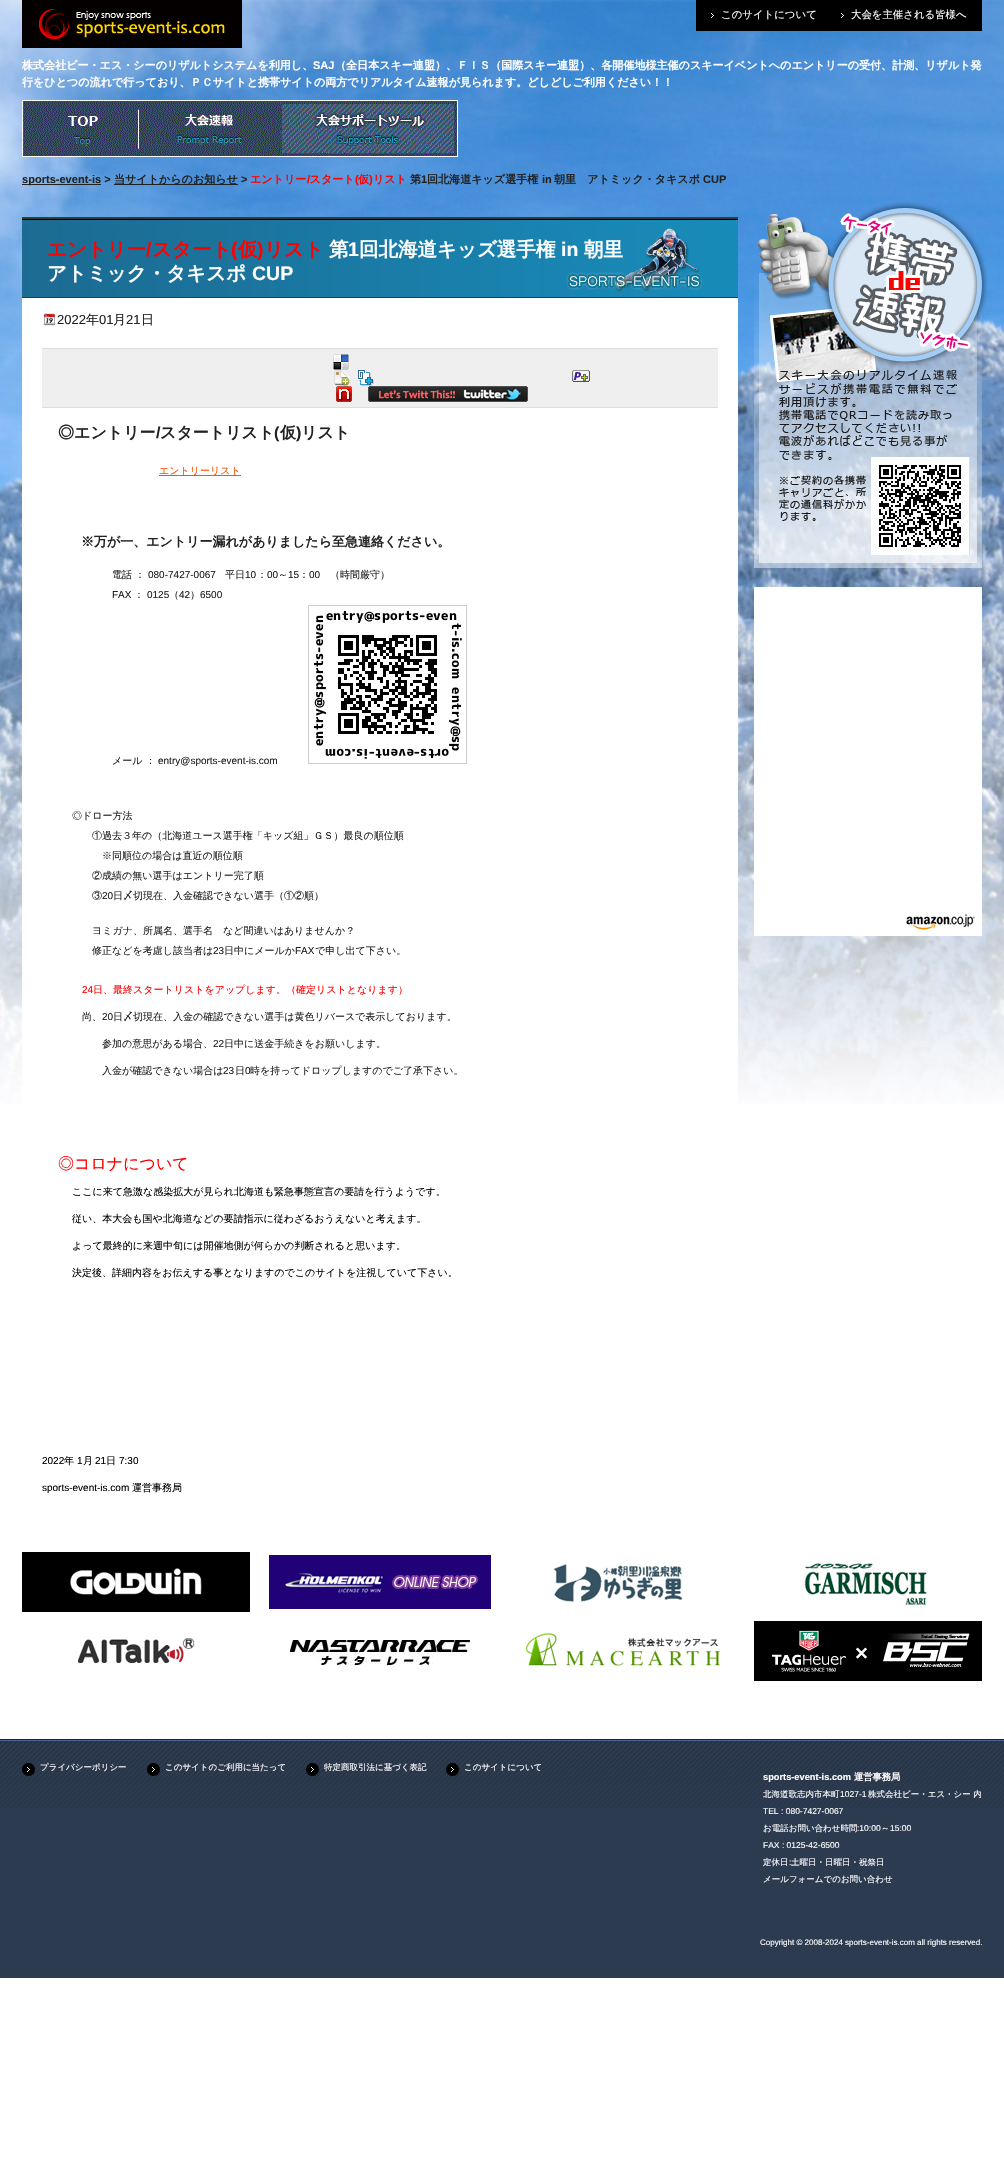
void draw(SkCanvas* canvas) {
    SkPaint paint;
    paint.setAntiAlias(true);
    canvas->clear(0xFFFFFFFF);
    canvas->drawImageRect(SkImages::DeferredFromEncodedData(SkData::MakeFromFileName("img1.png")), SkRect::MakeXYWH(0, 0, 1004, 1104), SkSamplingOptions());
    canvas->drawImageRect(SkImages::DeferredFromEncodedData(SkData::MakeFromFileName("img2.png")), SkRect::MakeXYWH(22, 0, 220, 48), SkSamplingOptions());
    paint.setColor(0xFF000000);
    canvas->drawRect(SkRect::MakeXYWH(696, 0, 286, 31), paint);
    canvas->drawImageRect(SkImages::DeferredFromEncodedData(SkData::MakeFromFileName("img3.png")), SkRect::MakeXYWH(711, 13, 3, 5), SkSamplingOptions());
    SkFont font1(fontMgr->matchFamilyStyle("WenQuanYi Zen Hei", SkFontStyle(500, SkFontStyle::kNormal_Width, SkFontStyle::kUpright_Slant)), 10.4f);
    font1.setSubpixel(true);
    paint.setColor(0xFFFFFFFF);
    canvas->drawString("このサイトについて", 721, 18, font1, paint);
    canvas->drawImageRect(SkImages::DeferredFromEncodedData(SkData::MakeFromFileName("img3.png")), SkRect::MakeXYWH(841, 13, 3, 5), SkSamplingOptions());
    canvas->drawString("大会を主催される皆様へ", 851, 18, font1, paint);
    SkFont font2(fontMgr->matchFamilyStyle("WenQuanYi Zen Hei", SkFontStyle::Bold()), 11.05f);
    font2.setSubpixel(true);
    canvas->drawString("株式会社ビー・エス・シーのリザルトシステムを利用し、", 22, 69, font2, paint);
    SkFont font3(fontMgr->matchFamilyStyle("Liberation Sans", SkFontStyle::Bold()), 11.05f);
    font3.setSubpixel(true);
    canvas->drawString("SAJ", 313, 69, font3, paint);
    canvas->drawString("（全日本スキー連盟）、ＦＩＳ（国際スキー連盟）、各開催地様主催のスキーイベントへのエントリーの受付、計測、リザルト発", 335, 69, font2, paint);
    canvas->drawString("行をひとつの流れで行っており、ＰＣサイトと携帯サイトの両方でリアルタイム速報が見られます。どしどしご利用ください！！", 22, 86, font2, paint);
    canvas->drawImageRect(SkImages::DeferredFromEncodedData(SkData::MakeFromFileName("img4.png")), SkRect::MakeXYWH(22, 100, 117, 57), SkSamplingOptions());
    canvas->drawImageRect(SkImages::DeferredFromEncodedData(SkData::MakeFromFileName("img5.png")), SkRect::MakeXYWH(139, 100, 142, 57), SkSamplingOptions());
    canvas->drawImageRect(SkImages::DeferredFromEncodedData(SkData::MakeFromFileName("img6.png")), SkRect::MakeXYWH(281, 100, 177, 57), SkSamplingOptions());
    paint.setColor(0xFF222222);
    canvas->drawRect(SkRect::MakeXYWH(22, 184, 79, 1), paint);
    canvas->drawString("sports-event-is >", 22, 183, font3, paint);
    canvas->drawRect(SkRect::MakeXYWH(114, 184, 124, 1), paint);
    canvas->drawString("当サイトからのお知らせ", 114, 183, font2, paint);
    paint.setColor(0xFFFF0000);
    canvas->drawString("エントリー スタート", 250, 183, font2, paint);
    canvas->drawString("(", 355, 183, font3, paint);
    canvas->drawString("仮", 358, 183, font2, paint);
    paint.setColor(0xFF222222);
    canvas->drawString("第", 410, 183, font2, paint);
    canvas->drawString("回北海道キッズ選手権", 427, 183, font2, paint);
    canvas->drawString("朝里　アトミック・タキスポ", 554, 183, font2, paint);
    canvas->drawString(">", 241, 183, font3, paint);
    paint.setColor(0xFFFF0000);
    canvas->drawString("/", 307, 183, font3, paint);
    canvas->drawString(")", 369, 183, font3, paint);
    canvas->drawString("リスト", 373, 183, font2, paint);
    paint.setColor(0xFF222222);
    canvas->drawString("1", 421, 183, font3, paint);
    canvas->drawString("in", 542, 183, font3, paint);
    canvas->drawString("CUP", 703, 183, font3, paint);
    paint.setColor(0xFFFFFFFF);
    canvas->drawRect(SkRect::MakeXYWH(22, 298, 716, 806), paint);
    canvas->drawImageRect(SkImages::DeferredFromEncodedData(SkData::MakeFromFileName("img7.png")), SkRect::MakeXYWH(22, 217, 716, 81), SkSamplingOptions());
    SkFont font4(fontMgr->matchFamilyStyle("WenQuanYi Zen Hei", SkFontStyle::Bold()), 19.5f);
    font4.setSubpixel(true);
    paint.setColor(0xFFFF0000);
    canvas->drawString("エントリー", 47, 256, font4, paint);
    SkFont font5(fontMgr->matchFamilyStyle("Liberation Sans", SkFontStyle::Bold()), 19.5f);
    font5.setSubpixel(true);
    canvas->drawString("/", 146, 256, font5, paint);
    canvas->drawString("スタート", 152, 256, font4, paint);
    canvas->drawString("(", 231, 256, font5, paint);
    canvas->drawString("仮", 238, 256, font4, paint);
    canvas->drawString(")", 257, 256, font5, paint);
    canvas->drawString("リスト", 264, 256, font4, paint);
    paint.setColor(0xFFFFFFFF);
    canvas->drawString("第", 329, 256, font4, paint);
    canvas->drawString("1", 348, 256, font5, paint);
    canvas->drawString("回北海道キッズ選手権", 359, 256, font4, paint);
    canvas->drawString("in", 561, 256, font5, paint);
    canvas->drawString("朝里", 584, 256, font4, paint);
    canvas->drawString("アトミック・タキスポ", 47, 280, font4, paint);
    canvas->drawString("CUP", 252, 280, font5, paint);
    canvas->drawImageRect(SkImages::DeferredFromEncodedData(SkData::MakeFromFileName("img8.png")), SkRect::MakeXYWH(43, 313, 13, 13), SkSamplingOptions());
    SkFont font6(fontMgr->matchFamilyStyle("Liberation Sans", SkFontStyle::Normal()), 13);
    font6.setSubpixel(true);
    paint.setColor(0xFF222222);
    canvas->drawString("2022", 57, 324, font6, paint);
    SkFont font7(fontMgr->matchFamilyStyle("WenQuanYi Zen Hei", SkFontStyle(500, SkFontStyle::kNormal_Width, SkFontStyle::kUpright_Slant)), 13);
    font7.setSubpixel(true);
    canvas->drawString("年", 86, 324, font7, paint);
    canvas->drawString("01", 99, 324, font6, paint);
    canvas->drawString("月", 113, 324, font7, paint);
    canvas->drawString("21", 126, 324, font6, paint);
    canvas->drawString("日", 141, 324, font7, paint);
    paint.setColor(0xFFEFEFEF);
    canvas->drawRect(SkRect::MakeXYWH(42, 349, 676, 58), paint);
    paint.setColor(0xFFDDDDDD);
    canvas->drawRect(SkRect::MakeXYWH(42, 348, 676, 1), paint);
    canvas->drawRect(SkRect::MakeXYWH(42, 407, 676, 1), paint);
    canvas->drawImageRect(SkImages::DeferredFromEncodedData(SkData::MakeFromFileName("img9.png")), SkRect::MakeXYWH(333, 354, 16, 16), SkSamplingOptions());
    canvas->drawImageRect(SkImages::DeferredFromEncodedData(SkData::MakeFromFileName("img10.png")), SkRect::MakeXYWH(334, 370, 16, 16), SkSamplingOptions());
    canvas->drawImageRect(SkImages::DeferredFromEncodedData(SkData::MakeFromFileName("img11.png")), SkRect::MakeXYWH(358, 370, 16, 16), SkSamplingOptions());
    canvas->drawImageRect(SkImages::DeferredFromEncodedData(SkData::MakeFromFileName("img12.png")), SkRect::MakeXYWH(572, 370, 18, 12), SkSamplingOptions());
    canvas->drawImageRect(SkImages::DeferredFromEncodedData(SkData::MakeFromFileName("img13.png")), SkRect::MakeXYWH(336, 386, 16, 16), SkSamplingOptions());
    canvas->drawImageRect(SkImages::DeferredFromEncodedData(SkData::MakeFromFileName("img14.png")), SkRect::MakeXYWH(368, 386, 160, 16), SkSamplingOptions());
    SkFont font8(fontMgr->matchFamilyStyle("WenQuanYi Zen Hei", SkFontStyle::Bold()), 16);
    font8.setSubpixel(true);
    paint.setColor(0xFF222222);
    canvas->drawString("◎エントリー", 58, 438, font8, paint);
    SkFont font9(fontMgr->matchFamilyStyle("Liberation Sans", SkFontStyle::Bold()), 16);
    font9.setSubpixel(true);
    canvas->drawString("/", 156, 438, font9, paint);
    canvas->drawString("スタートリスト", 160, 438, font8, paint);
    canvas->drawString("(", 274, 438, font9, paint);
    canvas->drawString("仮", 280, 438, font8, paint);
    canvas->drawString(")", 296, 438, font9, paint);
    canvas->drawString("リスト", 301, 438, font8, paint);
    paint.setColor(0xFFFF5300);
    canvas->drawRect(SkRect::MakeXYWH(159, 475, 82, 1), paint);
    SkFont font10(fontMgr->matchFamilyStyle("WenQuanYi Zen Hei", SkFontStyle(500, SkFontStyle::kNormal_Width, SkFontStyle::kUpright_Slant)), 10);
    font10.setSubpixel(true);
    canvas->drawString("エントリーリスト", 159, 474, font10, paint);
    SkFont font11(fontMgr->matchFamilyStyle("WenQuanYi Zen Hei", SkFontStyle::Bold()), 13);
    font11.setSubpixel(true);
    paint.setColor(0xFF222222);
    canvas->drawString("※万が一、エントリー漏れがありましたら至急連絡ください。", 81, 546, font11, paint);
    canvas->drawString("電話 ：", 112, 578, font10, paint);
    SkFont font12(fontMgr->matchFamilyStyle("Liberation Sans", SkFontStyle::Normal()), 10);
    font12.setSubpixel(true);
    canvas->drawString("080-7427-0067", 148, 578, font12, paint);
    canvas->drawString("平日", 225, 578, font10, paint);
    canvas->drawString("10", 245, 578, font12, paint);
    canvas->drawString("：", 257, 578, font10, paint);
    canvas->drawString("00", 267, 578, font12, paint);
    canvas->drawString("～", 278, 578, font10, paint);
    canvas->drawString("15", 288, 578, font12, paint);
    canvas->drawString("：", 299, 578, font10, paint);
    canvas->drawString("00", 309, 578, font12, paint);
    canvas->drawString("（時間厳守）", 330, 578, font10, paint);
    canvas->drawString("FAX", 112, 598, font12, paint);
    canvas->drawString("：", 134, 598, font10, paint);
    canvas->drawString("0125", 147, 598, font12, paint);
    canvas->drawString("（", 169, 598, font10, paint);
    canvas->drawString("42", 179, 598, font12, paint);
    canvas->drawString("）", 190, 598, font10, paint);
    canvas->drawString("6500", 200, 598, font12, paint);
    paint.setStyle(SkPaint::kStroke_Style);
    paint.setStrokeWidth(1);
    paint.setColor(0xFFCCCCCC);
    canvas->drawRect(SkRect::MakeXYWH(308.5f, 605.5f, 158, 158), paint);
    canvas->drawImageRect(SkImages::DeferredFromEncodedData(SkData::MakeFromFileName("img15.png")), SkRect::MakeXYWH(314, 611, 148, 148), SkSamplingOptions());
    paint.setStyle(SkPaint::kFill_Style);
    paint.setColor(0xFF222222);
    canvas->drawString("メール ：", 112, 764, font10, paint);
    canvas->drawString("entry@sports-event-is.com", 158, 764, font12, paint);
    canvas->drawString("◎ドロー方法", 72, 819, font10, paint);
    canvas->drawString("①過去３年の（北海道ユース選手権「キッズ組」ＧＳ）最良の順位順", 92, 839, font10, paint);
    canvas->drawString("※同順位の場合は直近の順位順", 102, 859, font10, paint);
    canvas->drawString("②成績の無い選手はエントリー完了順", 92, 879, font10, paint);
    canvas->drawString("③", 92, 899, font10, paint);
    canvas->drawString("20", 102, 899, font12, paint);
    canvas->drawString("日〆切現在、入金確認できない選手（①②順）", 113, 899, font10, paint);
    canvas->drawString("ヨミガナ、所属名、選手名　など間違いはありませんか？", 92, 934, font10, paint);
    canvas->drawString("修正などを考慮し該当者は", 92, 954, font10, paint);
    canvas->drawString("23", 213, 954, font12, paint);
    canvas->drawString("日中にメールか", 224, 954, font10, paint);
    canvas->drawString("FAX", 295, 954, font12, paint);
    canvas->drawString("で申し出て下さい。", 315, 954, font10, paint);
    paint.setColor(0xFFFF0000);
    canvas->drawString("24", 82, 993, font12, paint);
    canvas->drawString("日、最終スタートリストをアップします。（確定リストとなります）", 93, 993, font10, paint);
    paint.setColor(0xFF222222);
    canvas->drawString("尚、", 82, 1020, font10, paint);
    canvas->drawString("20", 102, 1020, font12, paint);
    canvas->drawString("日〆切現在、入金の確認できない選手は黄色リバースで表示しております。", 113, 1020, font10, paint);
    canvas->drawString("参加の意思がある場合、", 102, 1047, font10, paint);
    canvas->drawString("22", 213, 1047, font12, paint);
    canvas->drawString("日中に送金手続きをお願いします。", 224, 1047, font10, paint);
    canvas->drawString("入金が確認できない場合は", 102, 1074, font10, paint);
    canvas->drawString("23", 223, 1074, font12, paint);
    canvas->drawString("日", 235, 1074, font10, paint);
    canvas->drawString("0", 245, 1074, font12, paint);
    canvas->drawString("時を持ってドロップしますのでご了承下さい。", 250, 1074, font10, paint);
    SkFont font13(fontMgr->matchFamilyStyle("WenQuanYi Zen Hei", SkFontStyle(500, SkFontStyle::kNormal_Width, SkFontStyle::kUpright_Slant)), 16);
    font13.setSubpixel(true);
    paint.setColor(0xFFFF0000);
    canvas->drawString("◎コロナについて", 58, 1169, font13, paint);
    paint.setColor(0xFF000000);
    canvas->drawString("ここに来て急激な感染拡大が見られ北海道も緊急事態宣言の要請を行うようです。", 72, 1195, font10, paint);
    canvas->drawString("従い、本大会も国や北海道などの要請指示に従わざるおうえないと考えます。", 72, 1222, font10, paint);
    canvas->drawString("よって最終的に来週中旬には開催地側が何らかの判断されると思います。", 72, 1249, font10, paint);
    canvas->drawString("決定後、詳細内容をお伝えする事となりますのでこのサイトを注視していて下さい。", 72, 1276, font10, paint);
    canvas->drawString("2022", 42, 1464, font12, paint);
    canvas->drawString("年", 64, 1464, font10, paint);
    canvas->drawString("1", 77, 1464, font12, paint);
    canvas->drawString("月", 83, 1464, font10, paint);
    canvas->drawString("21", 95, 1464, font12, paint);
    canvas->drawString("日", 106, 1464, font10, paint);
    canvas->drawString("7:30", 119, 1464, font12, paint);
    canvas->drawString("sports-event-is.com", 42, 1491, font12, paint);
    canvas->drawString("運営事務局", 132, 1491, font10, paint);
    canvas->drawImageRect(SkImages::DeferredFromEncodedData(SkData::MakeFromFileName("img16.png")), SkRect::MakeXYWH(754, 202, 234, 366), SkSamplingOptions());
    paint.setColor(0xFFFFFFFF);
    canvas->drawRect(SkRect::MakeXYWH(754, 587, 228, 320), paint);
    canvas->drawImageRect(SkImages::DeferredFromEncodedData(SkData::MakeFromFileName("img17.png")), SkRect::MakeXYWH(754, 907, 228, 29), SkSamplingOptions());
    canvas->drawImageRect(SkImages::DeferredFromEncodedData(SkData::MakeFromFileName("img18.png")), SkRect::MakeXYWH(22, 1552, 228, 60), SkSamplingOptions());
    canvas->drawImageRect(SkImages::DeferredFromEncodedData(SkData::MakeFromFileName("img19.png")), SkRect::MakeXYWH(269, 1555, 222, 54), SkSamplingOptions());
    canvas->drawImageRect(SkImages::DeferredFromEncodedData(SkData::MakeFromFileName("img20.png")), SkRect::MakeXYWH(553, 1564, 130, 39), SkSamplingOptions());
    canvas->drawImageRect(SkImages::DeferredFromEncodedData(SkData::MakeFromFileName("img21.png")), SkRect::MakeXYWH(804, 1563, 123, 42), SkSamplingOptions());
    canvas->drawImageRect(SkImages::DeferredFromEncodedData(SkData::MakeFromFileName("img22.png")), SkRect::MakeXYWH(78, 1638, 117, 25), SkSamplingOptions());
    canvas->drawImageRect(SkImages::DeferredFromEncodedData(SkData::MakeFromFileName("img23.png")), SkRect::MakeXYWH(290, 1640, 180, 25), SkSamplingOptions());
    canvas->drawImageRect(SkImages::DeferredFromEncodedData(SkData::MakeFromFileName("img24.png")), SkRect::MakeXYWH(525, 1632, 196, 35), SkSamplingOptions());
    canvas->drawImageRect(SkImages::DeferredFromEncodedData(SkData::MakeFromFileName("img25.png")), SkRect::MakeXYWH(754, 1621, 228, 60), SkSamplingOptions());
    paint.setColor(0xFF2D3B50);
    canvas->drawRect(SkRect::MakeXYWH(0, 1808, 1004, 170), paint);
    canvas->drawImageRect(SkImages::DeferredFromEncodedData(SkData::MakeFromFileName("img26.png")), SkRect::MakeXYWH(0, 1739, 1004, 69), SkSamplingOptions());
    canvas->drawImageRect(SkImages::DeferredFromEncodedData(SkData::MakeFromFileName("img27.png")), SkRect::MakeXYWH(22, 1763, 13, 13), SkSamplingOptions());
    SkFont font14(fontMgr->matchFamilyStyle("WenQuanYi Zen Hei", SkFontStyle(500, SkFontStyle::kNormal_Width, SkFontStyle::kUpright_Slant)), 8.5f);
    font14.setSubpixel(true);
    paint.setColor(0xFFFFFFFF);
    canvas->drawString("プライバシーポリシー", 40, 1770, font14, paint);
    canvas->drawImageRect(SkImages::DeferredFromEncodedData(SkData::MakeFromFileName("img27.png")), SkRect::MakeXYWH(147, 1763, 13, 13), SkSamplingOptions());
    canvas->drawString("このサイトのご利用に当たって", 165, 1770, font14, paint);
    canvas->drawImageRect(SkImages::DeferredFromEncodedData(SkData::MakeFromFileName("img28.png")), SkRect::MakeXYWH(306, 1763, 13, 13), SkSamplingOptions());
    canvas->drawString("特定商取引法に基づく表記", 324, 1770, font14, paint);
    canvas->drawImageRect(SkImages::DeferredFromEncodedData(SkData::MakeFromFileName("img28.png")), SkRect::MakeXYWH(446, 1763, 13, 13), SkSamplingOptions());
    canvas->drawString("このサイトについて", 464, 1770, font14, paint);
    SkFont font15(fontMgr->matchFamilyStyle("Liberation Sans", SkFontStyle::Bold()), 9.25f);
    font15.setSubpixel(true);
    canvas->drawString("sports-event-is.com", 763, 1780, font15, paint);
    SkFont font16(fontMgr->matchFamilyStyle("WenQuanYi Zen Hei", SkFontStyle::Bold()), 9.25f);
    font16.setSubpixel(true);
    canvas->drawString("運営事務局", 854, 1780, font16, paint);
    canvas->drawString("北海道歌志内市本町", 763, 1797, font14, paint);
    SkFont font17(fontMgr->matchFamilyStyle("Liberation Sans", SkFontStyle::Normal()), 8.5f);
    font17.setSubpixel(true);
    canvas->drawString("1027-1", 840, 1797, font17, paint);
    canvas->drawString("株式会社ビー・エス・シー 内", 868, 1797, font14, paint);
    canvas->drawString("TEL : 080‐7427‐0067", 763, 1814, font17, paint);
    canvas->drawString("お電話お問い合わせ時間", 763, 1831, font14, paint);
    canvas->drawString(":10:00", 857, 1831, font17, paint);
    canvas->drawString("～", 881, 1831, font14, paint);
    canvas->drawString("15:00", 890, 1831, font17, paint);
    canvas->drawString("FAX : 0125‐42‐6500", 763, 1848, font17, paint);
    canvas->drawString("定休日 土曜日・日曜日・祝祭日", 763, 1865, font14, paint);
    canvas->drawString(":", 789, 1865, font17, paint);
    canvas->drawString("メールフォームでのお問い合わせ", 763, 1882, font14, paint);
    SkFont font18(fontMgr->matchFamilyStyle("Liberation Sans", SkFontStyle::Normal()), 8);
    font18.setSubpixel(true);
    canvas->drawString("Copyright © 2008-2024 sports-event-is.com all rights reserved.", 760, 1945, font18, paint);
}
